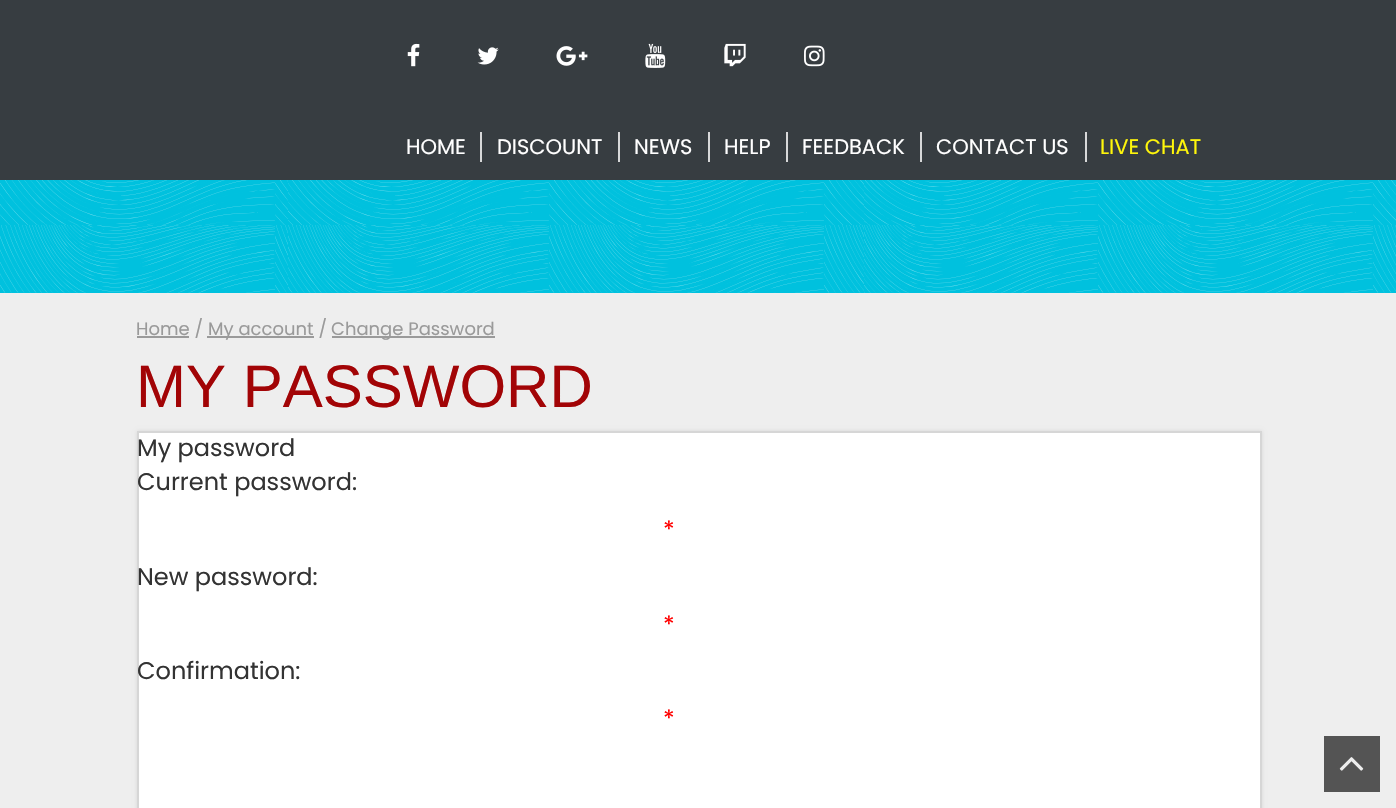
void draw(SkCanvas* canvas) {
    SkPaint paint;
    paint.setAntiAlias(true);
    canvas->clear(0xFFEEEEEE);
    paint.setColor(0xFF373D41);
    canvas->drawRect(SkRect::MakeXYWH(0, 0, 1396, 180), paint);
    canvas->drawImageRect(SkImages::DeferredFromEncodedData(SkData::MakeFromFileName("img1.png")), SkRect::MakeXYWH(407, 43, 13, 24), SkSamplingOptions());
    canvas->drawImageRect(SkImages::DeferredFromEncodedData(SkData::MakeFromFileName("img2.png")), SkRect::MakeXYWH(477, 47, 22, 18), SkSamplingOptions());
    canvas->drawImageRect(SkImages::DeferredFromEncodedData(SkData::MakeFromFileName("img3.png")), SkRect::MakeXYWH(556, 46, 32, 20), SkSamplingOptions());
    canvas->drawImageRect(SkImages::DeferredFromEncodedData(SkData::MakeFromFileName("img4.png")), SkRect::MakeXYWH(645, 43, 21, 25), SkSamplingOptions());
    canvas->drawImageRect(SkImages::DeferredFromEncodedData(SkData::MakeFromFileName("img5.png")), SkRect::MakeXYWH(724, 43, 22, 24), SkSamplingOptions());
    canvas->drawImageRect(SkImages::DeferredFromEncodedData(SkData::MakeFromFileName("img6.png")), SkRect::MakeXYWH(804, 45, 21, 22), SkSamplingOptions());
    paint.setColor(0xFFD7D8D9);
    canvas->drawRect(SkRect::MakeXYWH(480, 132, 2, 30), paint);
    SkFont font1(fontMgr->matchFamilyStyle("Poppins", SkFontStyle::Normal()), 21);
    font1.setSubpixel(true);
    paint.setColor(0xFFFFFFFF);
    canvas->drawString("HOME", 406, 154, font1, paint);
    paint.setColor(0xFFD7D8D9);
    canvas->drawRect(SkRect::MakeXYWH(618, 132, 2, 30), paint);
    paint.setColor(0xFFFFFFFF);
    canvas->drawString("DISCOUNT", 497, 154, font1, paint);
    paint.setColor(0xFFD7D8D9);
    canvas->drawRect(SkRect::MakeXYWH(708, 132, 2, 30), paint);
    paint.setColor(0xFFFFFFFF);
    canvas->drawString("NEWS", 634, 154, font1, paint);
    paint.setColor(0xFFD7D8D9);
    canvas->drawRect(SkRect::MakeXYWH(786, 132, 2, 30), paint);
    paint.setColor(0xFFFFFFFF);
    canvas->drawString("HELP", 724, 154, font1, paint);
    paint.setColor(0xFFD7D8D9);
    canvas->drawRect(SkRect::MakeXYWH(920, 132, 2, 30), paint);
    paint.setColor(0xFFFFFFFF);
    canvas->drawString("FEEDBACK", 802, 154, font1, paint);
    paint.setColor(0xFFD7D8D9);
    canvas->drawRect(SkRect::MakeXYWH(1085, 132, 2, 30), paint);
    paint.setColor(0xFFFFFFFF);
    canvas->drawString("CONTACT US", 936, 154, font1, paint);
    paint.setColor(0xFFFFF60B);
    canvas->drawString("LIVE CHAT", 1100, 154, font1, paint);
    paint.setColor(0xFF00C1DE);
    canvas->drawRect(SkRect::MakeXYWH(0, 180, 1396, 113), paint);
    canvas->drawImageRect(SkImages::DeferredFromEncodedData(SkData::MakeFromFileName("img7.png")), SkRect::MakeXYWH(0, 180, 1396, 113), SkSamplingOptions());
    paint.setColor(0xFF9A9A9A);
    canvas->drawRect(SkRect::MakeXYWH(137, 336, 52, 2), paint);
    SkFont font2(fontMgr->matchFamilyStyle("Poppins", SkFontStyle::Normal()), 18);
    font2.setSubpixel(true);
    canvas->drawString("Home /", 136, 335, font2, paint);
    canvas->drawRect(SkRect::MakeXYWH(207, 336, 107, 2), paint);
    canvas->drawString("My account /", 208, 335, font2, paint);
    canvas->drawRect(SkRect::MakeXYWH(332, 336, 163, 2), paint);
    canvas->drawString("Change Password", 331, 335, font2, paint);
    SkFont font3(fontMgr->matchFamilyStyle("Liberation Sans", SkFontStyle::Normal()), 60);
    font3.setSubpixel(true);
    paint.setColor(0xFFA20406);
    canvas->drawString("MY PASSWORD", 136, 407, font3, paint);
    paint.setColor(0xFFD6D6D6);
    paint.setMaskFilter(SkMaskFilter::MakeBlur(kNormal_SkBlurStyle, 2));
    canvas->drawRect(SkRect::MakeXYWH(137, 431, 1125, 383), paint);
    paint.setMaskFilter(nullptr);
    paint.setColor(0xFFFFFFFF);
    canvas->drawRect(SkRect::MakeXYWH(138, 432, 1123, 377), paint);
    paint.setStyle(SkPaint::kStroke_Style);
    paint.setStrokeWidth(2);
    paint.setColor(0xFFD6D6D6);
    canvas->drawRect(SkRect::MakeXYWH(138, 432, 1123, 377), paint);
    SkFont font4(fontMgr->matchFamilyStyle("Poppins", SkFontStyle::Normal()), 24);
    font4.setSubpixel(true);
    paint.setStyle(SkPaint::kFill_Style);
    paint.setColor(0xFF333333);
    canvas->drawString("My password", 137, 456, font4, paint);
    canvas->drawString("Current password:", 137, 490, font4, paint);
    paint.setColor(0xFFFF0000);
    canvas->drawString("*", 663, 538, font4, paint);
    paint.setColor(0xFF333333);
    canvas->drawString("New password:", 137, 585, font4, paint);
    paint.setColor(0xFFFF0000);
    canvas->drawString("*", 663, 633, font4, paint);
    paint.setColor(0xFF333333);
    canvas->drawString("Confirmation:", 137, 679, font4, paint);
    paint.setColor(0xFFFF0000);
    canvas->drawString("*", 663, 727, font4, paint);
    paint.setColor(0xFF545454);
    canvas->drawRect(SkRect::MakeXYWH(1324, 736, 56, 56), paint);
    canvas->drawImageRect(SkImages::DeferredFromEncodedData(SkData::MakeFromFileName("img8.png")), SkRect::MakeXYWH(1339, 757, 25, 14), SkSamplingOptions());
}
